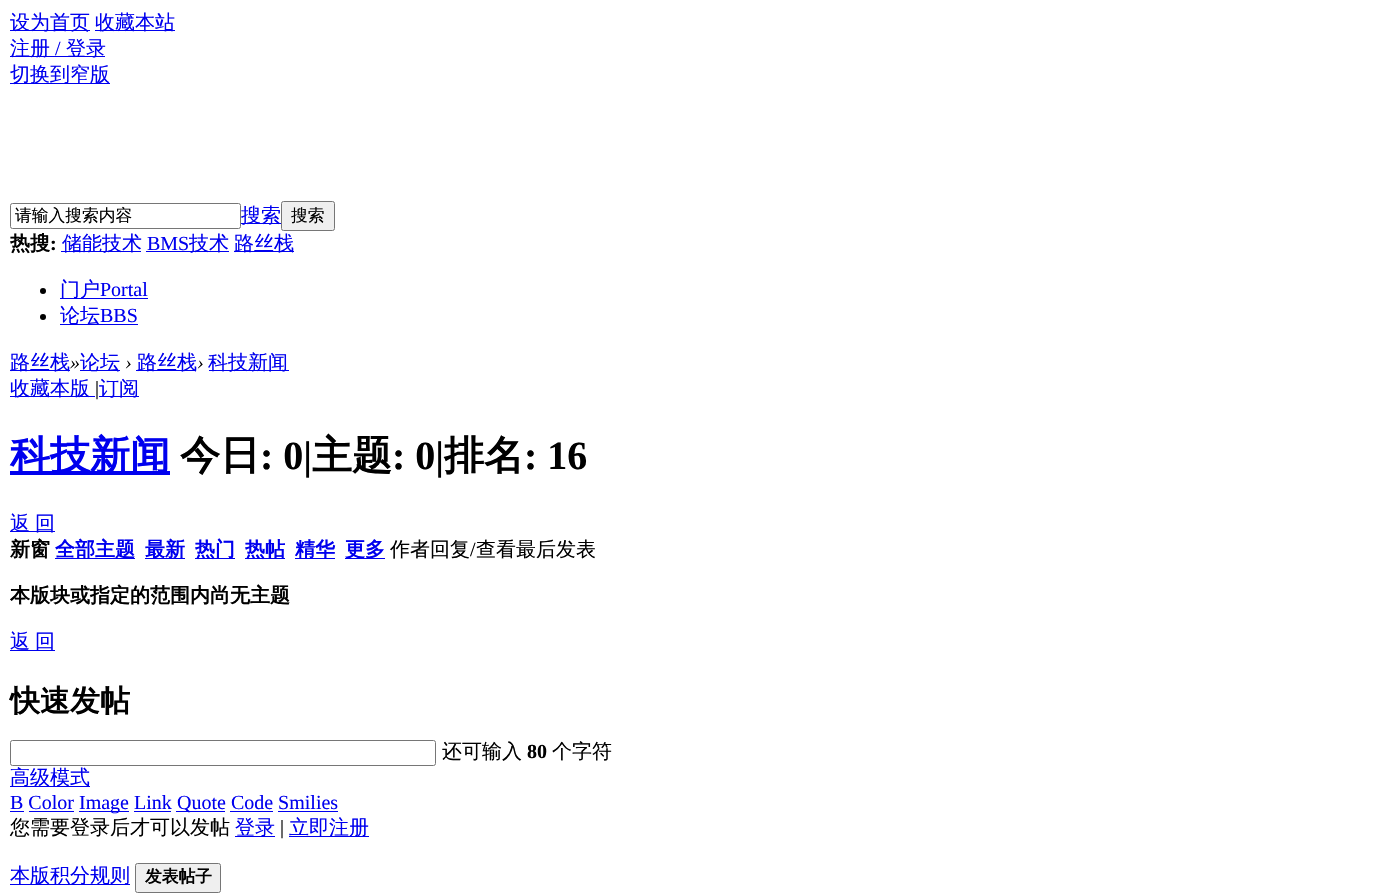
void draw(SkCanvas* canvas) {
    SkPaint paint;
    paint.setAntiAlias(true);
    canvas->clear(0xFFFFFFFF);
    paint.setColor(0xFF0000EE);
    canvas->drawRect(SkRect::MakeXYWH(10, 30, 80, 1), paint);
    SkFont font1(fontMgr->matchFamilyStyle("WenQuanYi Zen Hei", SkFontStyle(500, SkFontStyle::kNormal_Width, SkFontStyle::kUpright_Slant)), 20);
    font1.setSubpixel(true);
    canvas->drawString("设为首页", 10, 29, font1, paint);
    canvas->drawRect(SkRect::MakeXYWH(95, 30, 80, 1), paint);
    canvas->drawString("收藏本站", 95, 29, font1, paint);
    canvas->drawRect(SkRect::MakeXYWH(10, 56, 95, 1), paint);
    canvas->drawString("注册", 10, 55, font1, paint);
    SkFont font2(fontMgr->matchFamilyStyle("Liberation Serif", SkFontStyle::Normal()), 20);
    font2.setSubpixel(true);
    canvas->drawString("/", 55, 55, font2, paint);
    canvas->drawString("登录", 66, 55, font1, paint);
    canvas->drawRect(SkRect::MakeXYWH(10, 83, 100, 1), paint);
    canvas->drawString("切换到窄版", 10, 81, font1, paint);
    paint.setStyle(SkPaint::kStroke_Style);
    paint.setStrokeWidth(1);
    paint.setColor(0xFF767676);
    canvas->drawRoundRect(SkRect::MakeXYWH(10.5f, 203.5f, 230, 25), 2, 2, paint);
    SkFont font3(fontMgr->matchFamilyStyle("WenQuanYi Zen Hei", SkFontStyle(500, SkFontStyle::kNormal_Width, SkFontStyle::kUpright_Slant)), 16.75f);
    font3.setSubpixel(true);
    paint.setStyle(SkPaint::kFill_Style);
    paint.setColor(0xFF000000);
    canvas->drawString("请输入搜索内容", 15, 221, font3, paint);
    paint.setColor(0xFF0000EE);
    canvas->drawRect(SkRect::MakeXYWH(241, 223, 40, 1), paint);
    canvas->drawString("搜索", 241, 222, font1, paint);
    paint.setColor(0xFFEFEFEF);
    canvas->drawRoundRect(SkRect::MakeXYWH(281.5f, 201.5f, 53, 29), 2, 2, paint);
    paint.setStyle(SkPaint::kStroke_Style);
    paint.setColor(0xFF767676);
    canvas->drawRoundRect(SkRect::MakeXYWH(281.5f, 201.5f, 53, 29), 2, 2, paint);
    paint.setStyle(SkPaint::kFill_Style);
    paint.setColor(0xFF000000);
    canvas->drawString("搜索", 291, 221, font3, paint);
    SkFont font4(fontMgr->matchFamilyStyle("WenQuanYi Zen Hei", SkFontStyle::Bold()), 20);
    font4.setSubpixel(true);
    canvas->drawString("热搜", 10, 250, font4, paint);
    SkFont font5(fontMgr->matchFamilyStyle("Liberation Serif", SkFontStyle::Bold()), 20);
    font5.setSubpixel(true);
    canvas->drawString(":", 50, 250, font5, paint);
    paint.setColor(0xFF0000EE);
    canvas->drawRect(SkRect::MakeXYWH(61, 251, 80, 1), paint);
    canvas->drawString("储能技术", 62, 250, font1, paint);
    canvas->drawString("BMS", 147, 250, font2, paint);
    canvas->drawRect(SkRect::MakeXYWH(146, 251, 83, 1), paint);
    canvas->drawString("技术", 189, 250, font1, paint);
    canvas->drawRect(SkRect::MakeXYWH(234, 251, 60, 1), paint);
    canvas->drawString("路丝栈", 234, 250, font1, paint);
    paint.setColor(0xFF000000);
    canvas->drawCircle(43, 291, 3, paint);
    paint.setColor(0xFF0000EE);
    canvas->drawRect(SkRect::MakeXYWH(60, 298, 88, 1), paint);
    canvas->drawString("门户", 60, 296, font1, paint);
    canvas->drawString("Portal", 100, 296, font2, paint);
    paint.setColor(0xFF000000);
    canvas->drawCircle(43, 317, 3, paint);
    paint.setColor(0xFF0000EE);
    canvas->drawRect(SkRect::MakeXYWH(60, 324, 78, 1), paint);
    canvas->drawString("论坛", 60, 322, font1, paint);
    canvas->drawString("BBS", 100, 322, font2, paint);
    canvas->drawRect(SkRect::MakeXYWH(10, 370, 60, 1), paint);
    canvas->drawString("路丝栈", 10, 369, font1, paint);
    SkFont font6(fontMgr->matchFamilyStyle("Liberation Serif", SkFontStyle::Italic()), 20);
    font6.setSubpixel(true);
    paint.setColor(0xFF000000);
    canvas->drawString("»", 70, 369, font6, paint);
    paint.setColor(0xFF0000EE);
    canvas->drawRect(SkRect::MakeXYWH(80, 370, 40, 1), paint);
    canvas->drawString("论坛", 80, 369, font1, paint);
    paint.setColor(0xFF000000);
    canvas->drawString("›", 125, 369, font6, paint);
    paint.setColor(0xFF0000EE);
    canvas->drawRect(SkRect::MakeXYWH(136, 370, 60, 1), paint);
    canvas->drawString("路丝栈", 137, 369, font1, paint);
    paint.setColor(0xFF000000);
    canvas->drawString("›", 197, 369, font6, paint);
    paint.setColor(0xFF0000EE);
    canvas->drawRect(SkRect::MakeXYWH(209, 370, 80, 1), paint);
    canvas->drawString("科技新闻", 208, 369, font1, paint);
    canvas->drawRect(SkRect::MakeXYWH(10, 396, 85, 1), paint);
    canvas->drawString("收藏本版", 10, 395, font1, paint);
    paint.setColor(0xFF000000);
    canvas->drawString("|", 95, 395, font2, paint);
    paint.setColor(0xFF0000EE);
    canvas->drawRect(SkRect::MakeXYWH(99, 396, 40, 1), paint);
    canvas->drawString("订阅", 99, 395, font1, paint);
    canvas->drawRect(SkRect::MakeXYWH(10, 471, 160, 4), paint);
    SkFont font7(fontMgr->matchFamilyStyle("WenQuanYi Zen Hei", SkFontStyle::Bold()), 40);
    font7.setSubpixel(true);
    canvas->drawString("科技新闻", 10, 469, font7, paint);
    paint.setColor(0xFF000000);
    canvas->drawString("今日", 180, 469, font7, paint);
    SkFont font8(fontMgr->matchFamilyStyle("Liberation Serif", SkFontStyle::Bold()), 40);
    font8.setSubpixel(true);
    canvas->drawString(": 0|", 260, 469, font8, paint);
    canvas->drawString("主题", 312, 469, font7, paint);
    canvas->drawString(": 0|", 392, 469, font8, paint);
    canvas->drawString("排名", 444, 469, font7, paint);
    canvas->drawString(": 16", 524, 469, font8, paint);
    paint.setColor(0xFF0000EE);
    canvas->drawRect(SkRect::MakeXYWH(10, 531, 45, 1), paint);
    canvas->drawString("返", 10, 530, font1, paint);
    canvas->drawString("回", 35, 530, font1, paint);
    paint.setColor(0xFF000000);
    canvas->drawString("新窗", 10, 556, font4, paint);
    paint.setColor(0xFF0000EE);
    canvas->drawRect(SkRect::MakeXYWH(55, 558, 80, 1), paint);
    canvas->drawString("全部主题", 55, 556, font4, paint);
    canvas->drawRect(SkRect::MakeXYWH(145, 558, 40, 1), paint);
    canvas->drawString("最新", 145, 556, font4, paint);
    canvas->drawRect(SkRect::MakeXYWH(195, 558, 40, 1), paint);
    canvas->drawString("热门", 195, 556, font4, paint);
    canvas->drawRect(SkRect::MakeXYWH(245, 558, 40, 1), paint);
    canvas->drawString("热帖", 245, 556, font4, paint);
    canvas->drawRect(SkRect::MakeXYWH(295, 558, 40, 1), paint);
    canvas->drawString("精华", 295, 556, font4, paint);
    canvas->drawRect(SkRect::MakeXYWH(345, 558, 40, 1), paint);
    canvas->drawString("更多", 345, 556, font4, paint);
    paint.setColor(0xFF000000);
    canvas->drawString("作者回复", 390, 556, font1, paint);
    canvas->drawString("/", 470, 556, font2, paint);
    canvas->drawString("查看最后发表", 476, 556, font1, paint);
    canvas->drawString("本版块或指定的范围内尚无主题", 10, 602, font4, paint);
    paint.setColor(0xFF0000EE);
    canvas->drawString("返", 10, 648, font1, paint);
    canvas->drawRect(SkRect::MakeXYWH(10, 650, 45, 1), paint);
    canvas->drawString("回", 35, 648, font1, paint);
    SkFont font9(fontMgr->matchFamilyStyle("WenQuanYi Zen Hei", SkFontStyle::Bold()), 30);
    font9.setSubpixel(true);
    paint.setColor(0xFF000000);
    canvas->drawString("快速发帖", 10, 711, font9, paint);
    paint.setStyle(SkPaint::kStroke_Style);
    paint.setColor(0xFF767676);
    canvas->drawRoundRect(SkRect::MakeXYWH(10.5f, 740.5f, 425, 25), 2, 2, paint);
    paint.setStyle(SkPaint::kFill_Style);
    paint.setColor(0xFF000000);
    canvas->drawString("还可输入", 442, 758, font1, paint);
    canvas->drawString("80", 527, 758, font5, paint);
    canvas->drawString("个字符", 552, 758, font1, paint);
    paint.setColor(0xFF0000EE);
    canvas->drawRect(SkRect::MakeXYWH(10, 786, 80, 1), paint);
    canvas->drawString("高级模式", 10, 784, font1, paint);
    canvas->drawString("B Color", 10, 809, font2, paint);
    canvas->drawRect(SkRect::MakeXYWH(10, 811, 14, 1), paint);
    canvas->drawRect(SkRect::MakeXYWH(79, 811, 50, 1), paint);
    canvas->drawString("Image Link", 79, 809, font2, paint);
    canvas->drawRect(SkRect::MakeXYWH(176, 811, 49, 1), paint);
    canvas->drawString("Quote Code Smilies", 177, 809, font2, paint);
    canvas->drawRect(SkRect::MakeXYWH(29, 811, 45, 1), paint);
    canvas->drawRect(SkRect::MakeXYWH(134, 811, 37, 1), paint);
    canvas->drawRect(SkRect::MakeXYWH(230, 811, 43, 1), paint);
    canvas->drawRect(SkRect::MakeXYWH(278, 811, 60, 1), paint);
    paint.setColor(0xFF000000);
    canvas->drawString("您需要登录后才可以发帖", 10, 834, font1, paint);
    paint.setColor(0xFF0000EE);
    canvas->drawRect(SkRect::MakeXYWH(235, 836, 40, 1), paint);
    canvas->drawString("登录", 235, 834, font1, paint);
    paint.setColor(0xFF000000);
    canvas->drawString("|", 280, 834, font2, paint);
    paint.setColor(0xFF0000EE);
    canvas->drawRect(SkRect::MakeXYWH(289, 836, 80, 1), paint);
    canvas->drawString("立即注册", 289, 834, font1, paint);
    canvas->drawRect(SkRect::MakeXYWH(10, 884, 120, 1), paint);
    canvas->drawString("本版积分规则", 10, 882, font1, paint);
    paint.setColor(0xFFEFEFEF);
    canvas->drawRoundRect(SkRect::MakeXYWH(135.5f, 863.5f, 85, 29), 2, 2, paint);
    paint.setStyle(SkPaint::kStroke_Style);
    paint.setColor(0xFF767676);
    canvas->drawRoundRect(SkRect::MakeXYWH(135.5f, 863.5f, 85, 29), 2, 2, paint);
    SkFont font10(fontMgr->matchFamilyStyle("WenQuanYi Zen Hei", SkFontStyle::Bold()), 16.75f);
    font10.setSubpixel(true);
    paint.setStyle(SkPaint::kFill_Style);
    paint.setColor(0xFF000000);
    canvas->drawString("发表帖子", 145, 882, font10, paint);
}
